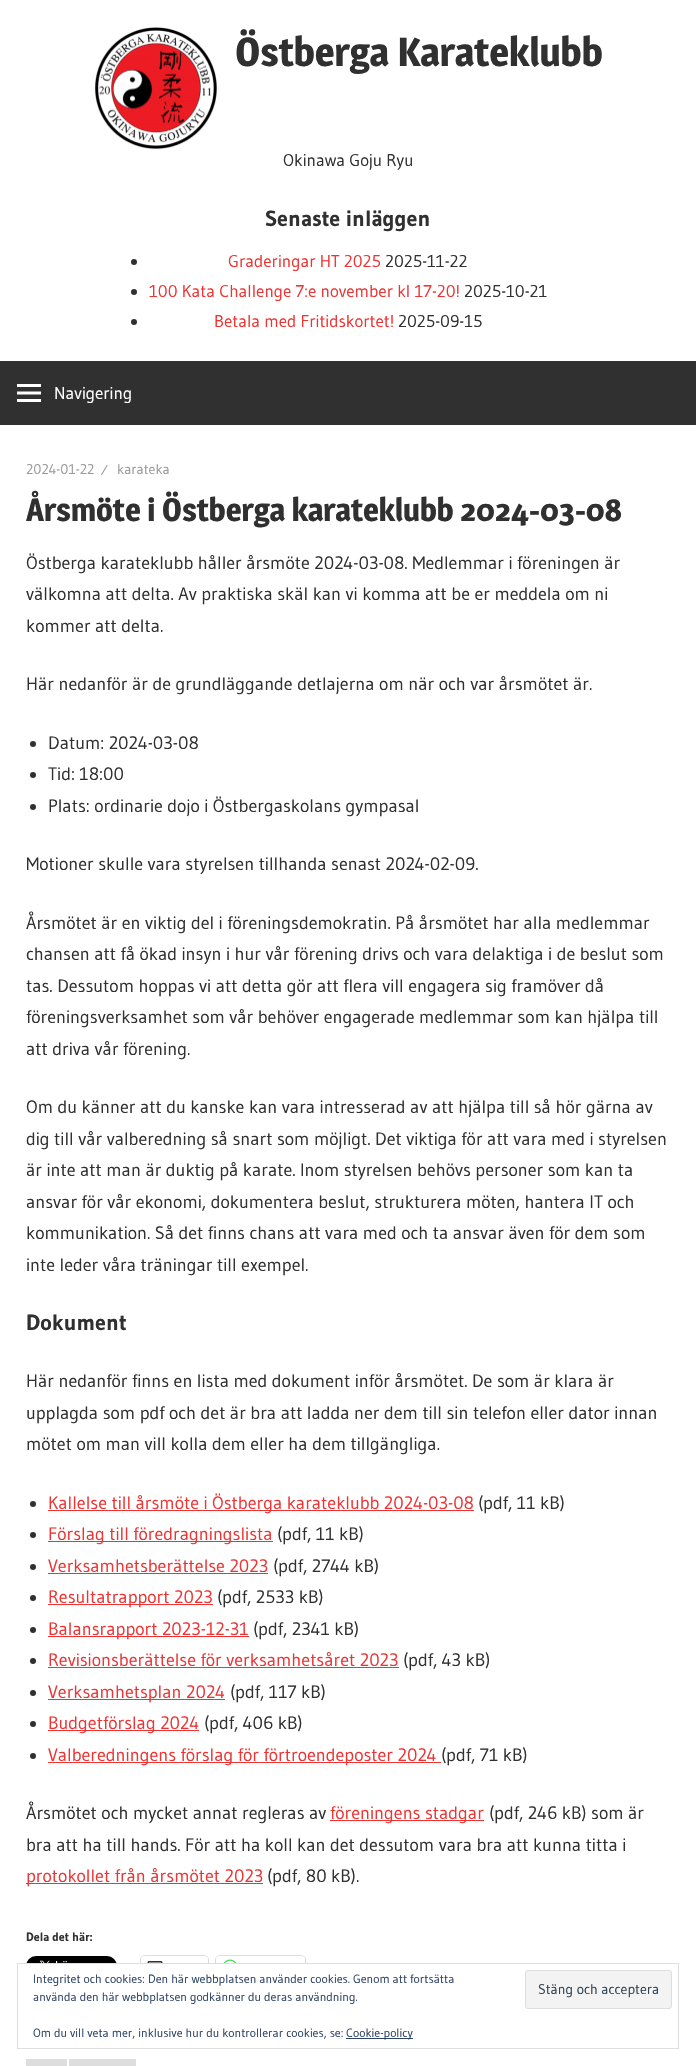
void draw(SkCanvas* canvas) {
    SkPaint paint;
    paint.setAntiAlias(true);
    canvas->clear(0xFFFFFFFF);
    canvas->drawImageRect(SkImages::DeferredFromEncodedData(SkData::MakeFromFileName("img1.png")), SkRect::MakeXYWH(94, 27, 124, 123), SkSamplingOptions());
    SkFont font1(fontMgr->matchFamilyStyle("Magra", SkFontStyle::Bold()), 40);
    font1.setSubpixel(true);
    paint.setColor(0xFF303030);
    canvas->drawString("Östberga Karateklubb", 235, 66, font1, paint);
    SkFont font2(fontMgr->matchFamilyStyle("Gudea", SkFontStyle::Normal()), 17);
    font2.setSubpixel(true);
    canvas->drawString("Okinawa Goju Ryu", 283, 166, font2, paint);
    SkFont font3(fontMgr->matchFamilyStyle("Gudea", SkFontStyle::Bold()), 22);
    font3.setSubpixel(true);
    canvas->drawString("Senaste inläggen", 265, 226, font3, paint);
    canvas->drawCircle(134, 262, 3, paint);
    paint.setColor(0xFFEE3333);
    canvas->drawString("Graderingar HT 2025", 228, 267, font2, paint);
    paint.setColor(0xFF303030);
    canvas->drawString("2025-11-22", 385, 267, font2, paint);
    canvas->drawCircle(134, 292, 3, paint);
    paint.setColor(0xFFEE3333);
    canvas->drawString("100 Kata Challenge 7:e november kl 17-20!", 149, 297, font2, paint);
    paint.setColor(0xFF303030);
    canvas->drawString("2025-10-21", 464, 297, font2, paint);
    canvas->drawCircle(134, 322, 3, paint);
    paint.setColor(0xFFEE3333);
    canvas->drawString("Betala med Fritidskortet!", 214, 327, font2, paint);
    paint.setColor(0xFF303030);
    canvas->drawString("2025-09-15", 398, 327, font2, paint);
    canvas->drawRect(SkRect::MakeXYWH(0, 361, 696, 64), paint);
    canvas->drawImageRect(SkImages::DeferredFromEncodedData(SkData::MakeFromFileName("img2.png")), SkRect::MakeXYWH(17, 384, 24, 18), SkSamplingOptions());
    paint.setColor(0xFFFFFFFF);
    canvas->drawString("Navigering", 54, 399, font2, paint);
    SkFont font4(fontMgr->matchFamilyStyle("Gudea", SkFontStyle::Normal()), 14);
    font4.setSubpixel(true);
    paint.setColor(0xFF999999);
    canvas->drawString("2024-01-22", 26, 474, font4, paint);
    canvas->drawString("⁄", 101, 475, font4, paint);
    canvas->drawString("karateka", 117, 474, font4, paint);
    SkFont font5(fontMgr->matchFamilyStyle("Magra", SkFontStyle::Bold()), 32);
    font5.setSubpixel(true);
    paint.setColor(0xFF303030);
    canvas->drawString("Årsmöte i Östberga karateklubb 2024-03-08", 26, 521, font5, paint);
    SkFont font6(fontMgr->matchFamilyStyle("Gudea", SkFontStyle::Normal()), 18);
    font6.setSubpixel(true);
    canvas->drawString("Östberga karateklubb håller årsmöte 2024-03-08. Medlemmar i föreningen är", 26, 569, font6, paint);
    canvas->drawString("välkomna att delta. Av praktiska skäl kan vi komma att be er meddela om ni", 26, 600, font6, paint);
    canvas->drawString("kommer att delta.", 26, 632, font6, paint);
    canvas->drawString("Här nedanför är de grundläggande detlajerna om när och var årsmötet är.", 26, 690, font6, paint);
    canvas->drawCircle(33, 744, 3, paint);
    canvas->drawString("Datum: 2024-03-08", 48, 749, font6, paint);
    canvas->drawCircle(33, 775, 3, paint);
    canvas->drawString("Tid: 18:00", 48, 780, font6, paint);
    canvas->drawCircle(33, 807, 3, paint);
    canvas->drawString("Plats: ordinarie dojo i Östbergaskolans gympasal", 48, 812, font6, paint);
    canvas->drawString("Motioner skulle vara styrelsen tillhanda senast 2024-02-09.", 26, 870, font6, paint);
    canvas->drawString("Årsmötet är en viktig del i föreningsdemokratin. På årsmötet har alla medlemmar", 26, 929, font6, paint);
    canvas->drawString("chansen att få ökad insyn i hur vår förening drivs och vara delaktiga i de beslut som", 26, 960, font6, paint);
    canvas->drawString("tas. Dessutom hoppas vi att detta gör att flera vill engagera sig framöver då", 26, 992, font6, paint);
    canvas->drawString("föreningsverksamhet som vår behöver engagerade medlemmar som kan hjälpa till", 26, 1023, font6, paint);
    canvas->drawString("att driva vår förening.", 26, 1055, font6, paint);
    canvas->drawString("Om du känner att du kanske kan vara intresserad av att hjälpa till så hör gärna av", 26, 1113, font6, paint);
    canvas->drawString("dig till vår valberedning så snart som möjligt. Det viktiga för att vara med i styrelsen", 26, 1145, font6, paint);
    canvas->drawString("är inte att man är duktig på karate. Inom styrelsen behövs personer som kan ta", 26, 1176, font6, paint);
    canvas->drawString("ansvar för vår ekonomi, dokumentera beslut, strukturera möten, hantera IT och", 26, 1208, font6, paint);
    canvas->drawString("kommunikation. Så det finns chans att vara med och ta ansvar även för dem som", 26, 1239, font6, paint);
    canvas->drawString("inte leder våra träningar till exempel.", 26, 1271, font6, paint);
    canvas->drawString("Dokument", 26, 1330, font3, paint);
    canvas->drawString("Här nedanför finns en lista med dokument inför årsmötet. De som är klara är", 26, 1387, font6, paint);
    canvas->drawString("upplagda som pdf och det är bra att ladda ner dem till sin telefon eller dator innan", 26, 1419, font6, paint);
    canvas->drawString("mötet om man vill kolla dem eller ha dem tillgängliga.", 26, 1450, font6, paint);
    canvas->drawCircle(33, 1504, 3, paint);
    paint.setColor(0xFFEE3333);
    canvas->drawRect(SkRect::MakeXYWH(48, 1510, 426, 1), paint);
    canvas->drawString("Kallelse till årsmöte i Östberga karateklubb 2024-03-08", 48, 1509, font6, paint);
    paint.setColor(0xFF303030);
    canvas->drawString("(pdf, 11 kB)", 478, 1509, font6, paint);
    canvas->drawCircle(33, 1535, 3, paint);
    paint.setColor(0xFFEE3333);
    canvas->drawRect(SkRect::MakeXYWH(48, 1541, 225, 1), paint);
    canvas->drawString("Förslag till föredragningslista", 48, 1540, font6, paint);
    paint.setColor(0xFF303030);
    canvas->drawString("(pdf, 11 kB)", 277, 1540, font6, paint);
    canvas->drawCircle(33, 1567, 3, paint);
    paint.setColor(0xFFEE3333);
    canvas->drawString("Verksamhetsberättelse 2023", 48, 1572, font6, paint);
    canvas->drawRect(SkRect::MakeXYWH(48, 1573, 220, 1), paint);
    paint.setColor(0xFF303030);
    canvas->drawString("(pdf, 2744 kB)", 273, 1572, font6, paint);
    canvas->drawCircle(33, 1598, 3, paint);
    paint.setColor(0xFFEE3333);
    canvas->drawRect(SkRect::MakeXYWH(48, 1604, 165, 1), paint);
    canvas->drawString("Resultatrapport 2023", 48, 1603, font6, paint);
    paint.setColor(0xFF303030);
    canvas->drawString("(pdf, 2533 kB)", 217, 1603, font6, paint);
    canvas->drawCircle(33, 1630, 3, paint);
    paint.setColor(0xFFEE3333);
    canvas->drawRect(SkRect::MakeXYWH(48, 1636, 201, 1), paint);
    canvas->drawString("Balansrapport 2023-12-31", 48, 1635, font6, paint);
    paint.setColor(0xFF303030);
    canvas->drawString("(pdf, 2341 kB)", 253, 1635, font6, paint);
    canvas->drawCircle(33, 1661, 3, paint);
    paint.setColor(0xFFEE3333);
    canvas->drawString("Revisionsberättelse för verksamhetsåret 2023", 48, 1666, font6, paint);
    canvas->drawRect(SkRect::MakeXYWH(48, 1667, 351, 1), paint);
    paint.setColor(0xFF303030);
    canvas->drawString("(pdf, 43 kB)", 403, 1666, font6, paint);
    canvas->drawCircle(33, 1693, 3, paint);
    paint.setColor(0xFFEE3333);
    canvas->drawRect(SkRect::MakeXYWH(48, 1699, 177, 1), paint);
    canvas->drawString("Verksamhetsplan 2024", 48, 1698, font6, paint);
    paint.setColor(0xFF303030);
    canvas->drawString("(pdf, 117 kB)", 230, 1698, font6, paint);
    canvas->drawCircle(33, 1724, 3, paint);
    paint.setColor(0xFFEE3333);
    canvas->drawRect(SkRect::MakeXYWH(48, 1730, 151, 1), paint);
    canvas->drawString("Budgetförslag 2024", 48, 1729, font6, paint);
    paint.setColor(0xFF303030);
    canvas->drawString("(pdf, 406 kB)", 204, 1729, font6, paint);
    canvas->drawCircle(33, 1756, 3, paint);
    paint.setColor(0xFFEE3333);
    canvas->drawRect(SkRect::MakeXYWH(48, 1762, 393, 1), paint);
    canvas->drawString("Valberedningens förslag för förtroendeposter 2024", 48, 1761, font6, paint);
    paint.setColor(0xFF303030);
    canvas->drawString("(pdf, 71 kB)", 441, 1761, font6, paint);
    canvas->drawString("Årsmötet och mycket annat regleras av", 26, 1819, font6, paint);
    paint.setColor(0xFFEE3333);
    canvas->drawRect(SkRect::MakeXYWH(330, 1820, 154, 1), paint);
    canvas->drawString("föreningens stadgar", 330, 1819, font6, paint);
    paint.setColor(0xFF303030);
    canvas->drawString("(pdf, 246 kB) som är", 489, 1819, font6, paint);
    canvas->drawString("bra att ha till hands. För att ha koll kan det dessutom vara bra att kunna titta i", 26, 1851, font6, paint);
    paint.setColor(0xFFEE3333);
    canvas->drawRect(SkRect::MakeXYWH(26, 1883, 237, 1), paint);
    canvas->drawString("protokollet från årsmötet 2023", 26, 1882, font6, paint);
    paint.setColor(0xFF303030);
    canvas->drawString("(pdf, 80 kB).", 267, 1882, font6, paint);
    SkFont font7(fontMgr->matchFamilyStyle("Gudea", SkFontStyle::Bold()), 12);
    font7.setSubpixel(true);
    canvas->drawString("Dela det här:", 26, 1941, font7, paint);
    canvas->drawImageRect(SkImages::DeferredFromEncodedData(SkData::MakeFromFileName("img3.png")), SkRect::MakeXYWH(26, 1956, 91, 7), SkSamplingOptions());
    paint.setStyle(SkPaint::kStroke_Style);
    paint.setStrokeWidth(1);
    paint.setColor(0xFFE0E0E0);
    canvas->drawRoundRect(SkRect::MakeXYWH(140.5f, 1955.5f, 68, 21), 4.5f, 4.5f, paint);
    paint.setStyle(SkPaint::kFill_Style);
    paint.setColor(0x1F000000);
    paint.setMaskFilter(SkMaskFilter::MakeBlur(kNormal_SkBlurStyle, 1));
    canvas->drawRoundRect(SkRect::MakeXYWH(141, 1957, 67, 20), 4, 4, paint);
    paint.setMaskFilter(nullptr);
    paint.setColor(0xFFFFFFFF);
    canvas->drawRoundRect(SkRect::MakeXYWH(141, 1956, 67, 20), 4, 4, paint);
    canvas->drawImageRect(SkImages::DeferredFromEncodedData(SkData::MakeFromFileName("img4.png")), SkRect::MakeXYWH(147, 1961, 16, 2), SkSamplingOptions());
    paint.setStyle(SkPaint::kStroke_Style);
    paint.setColor(0xFFE0E0E0);
    canvas->drawRoundRect(SkRect::MakeXYWH(215.5f, 1955.5f, 90, 21), 4.5f, 4.5f, paint);
    paint.setStyle(SkPaint::kFill_Style);
    paint.setColor(0x1F000000);
    paint.setMaskFilter(SkMaskFilter::MakeBlur(kNormal_SkBlurStyle, 1));
    canvas->drawRoundRect(SkRect::MakeXYWH(216, 1957, 89, 20), 4, 4, paint);
    paint.setMaskFilter(nullptr);
    paint.setColor(0xFFFFFFFF);
    canvas->drawRoundRect(SkRect::MakeXYWH(216, 1956, 89, 20), 4, 4, paint);
    canvas->drawImageRect(SkImages::DeferredFromEncodedData(SkData::MakeFromFileName("img5.png")), SkRect::MakeXYWH(223, 1959, 14, 4), SkSamplingOptions());
    paint.setColor(0xFFDDDDDD);
    canvas->drawRect(SkRect::MakeXYWH(26, 2059, 41, 7), paint);
    canvas->drawRect(SkRect::MakeXYWH(69, 2059, 67, 7), paint);
    paint.setColor(0xFFFFFFFF);
    canvas->drawRect(SkRect::MakeXYWH(140, 1964, 166, 14), paint);
    paint.setStyle(SkPaint::kStroke_Style);
    paint.setColor(0xFFDEDEDE);
    canvas->drawRect(SkRect::MakeXYWH(17.5f, 1963.5f, 661, 85), paint);
    SkFont font8(fontMgr->matchFamilyStyle("Gudea", SkFontStyle::Normal()), 12);
    font8.setSubpixel(true);
    paint.setStyle(SkPaint::kFill_Style);
    paint.setColor(0xFF2E4467);
    canvas->drawString("Integritet och cookies: Den här webbplatsen använder cookies. Genom att fortsätta", 33, 1983, font8, paint);
    canvas->drawString("använda den här webbplatsen godkänner du deras användning.", 33, 2001, font8, paint);
    paint.setColor(0xFFF3F3F3);
    canvas->drawRoundRect(SkRect::MakeXYWH(525.5f, 1970.5f, 146, 38), 2.5f, 2.5f, paint);
    paint.setStyle(SkPaint::kStroke_Style);
    paint.setColor(0xFFDEDEDE);
    canvas->drawRoundRect(SkRect::MakeXYWH(525.5f, 1970.5f, 146, 38), 2.5f, 2.5f, paint);
    paint.setStyle(SkPaint::kFill_Style);
    paint.setColor(0xFF2E4453);
    canvas->drawString("Stäng och acceptera", 538, 1994, font4, paint);
    paint.setColor(0xFF2E4467);
    canvas->drawString("Om du vill veta mer, inklusive hur du kontrollerar cookies, se:", 33, 2037, font8, paint);
    canvas->drawRect(SkRect::MakeXYWH(346, 2038, 67, 1), paint);
    canvas->drawString("Cookie-policy", 346, 2037, font8, paint);
}
